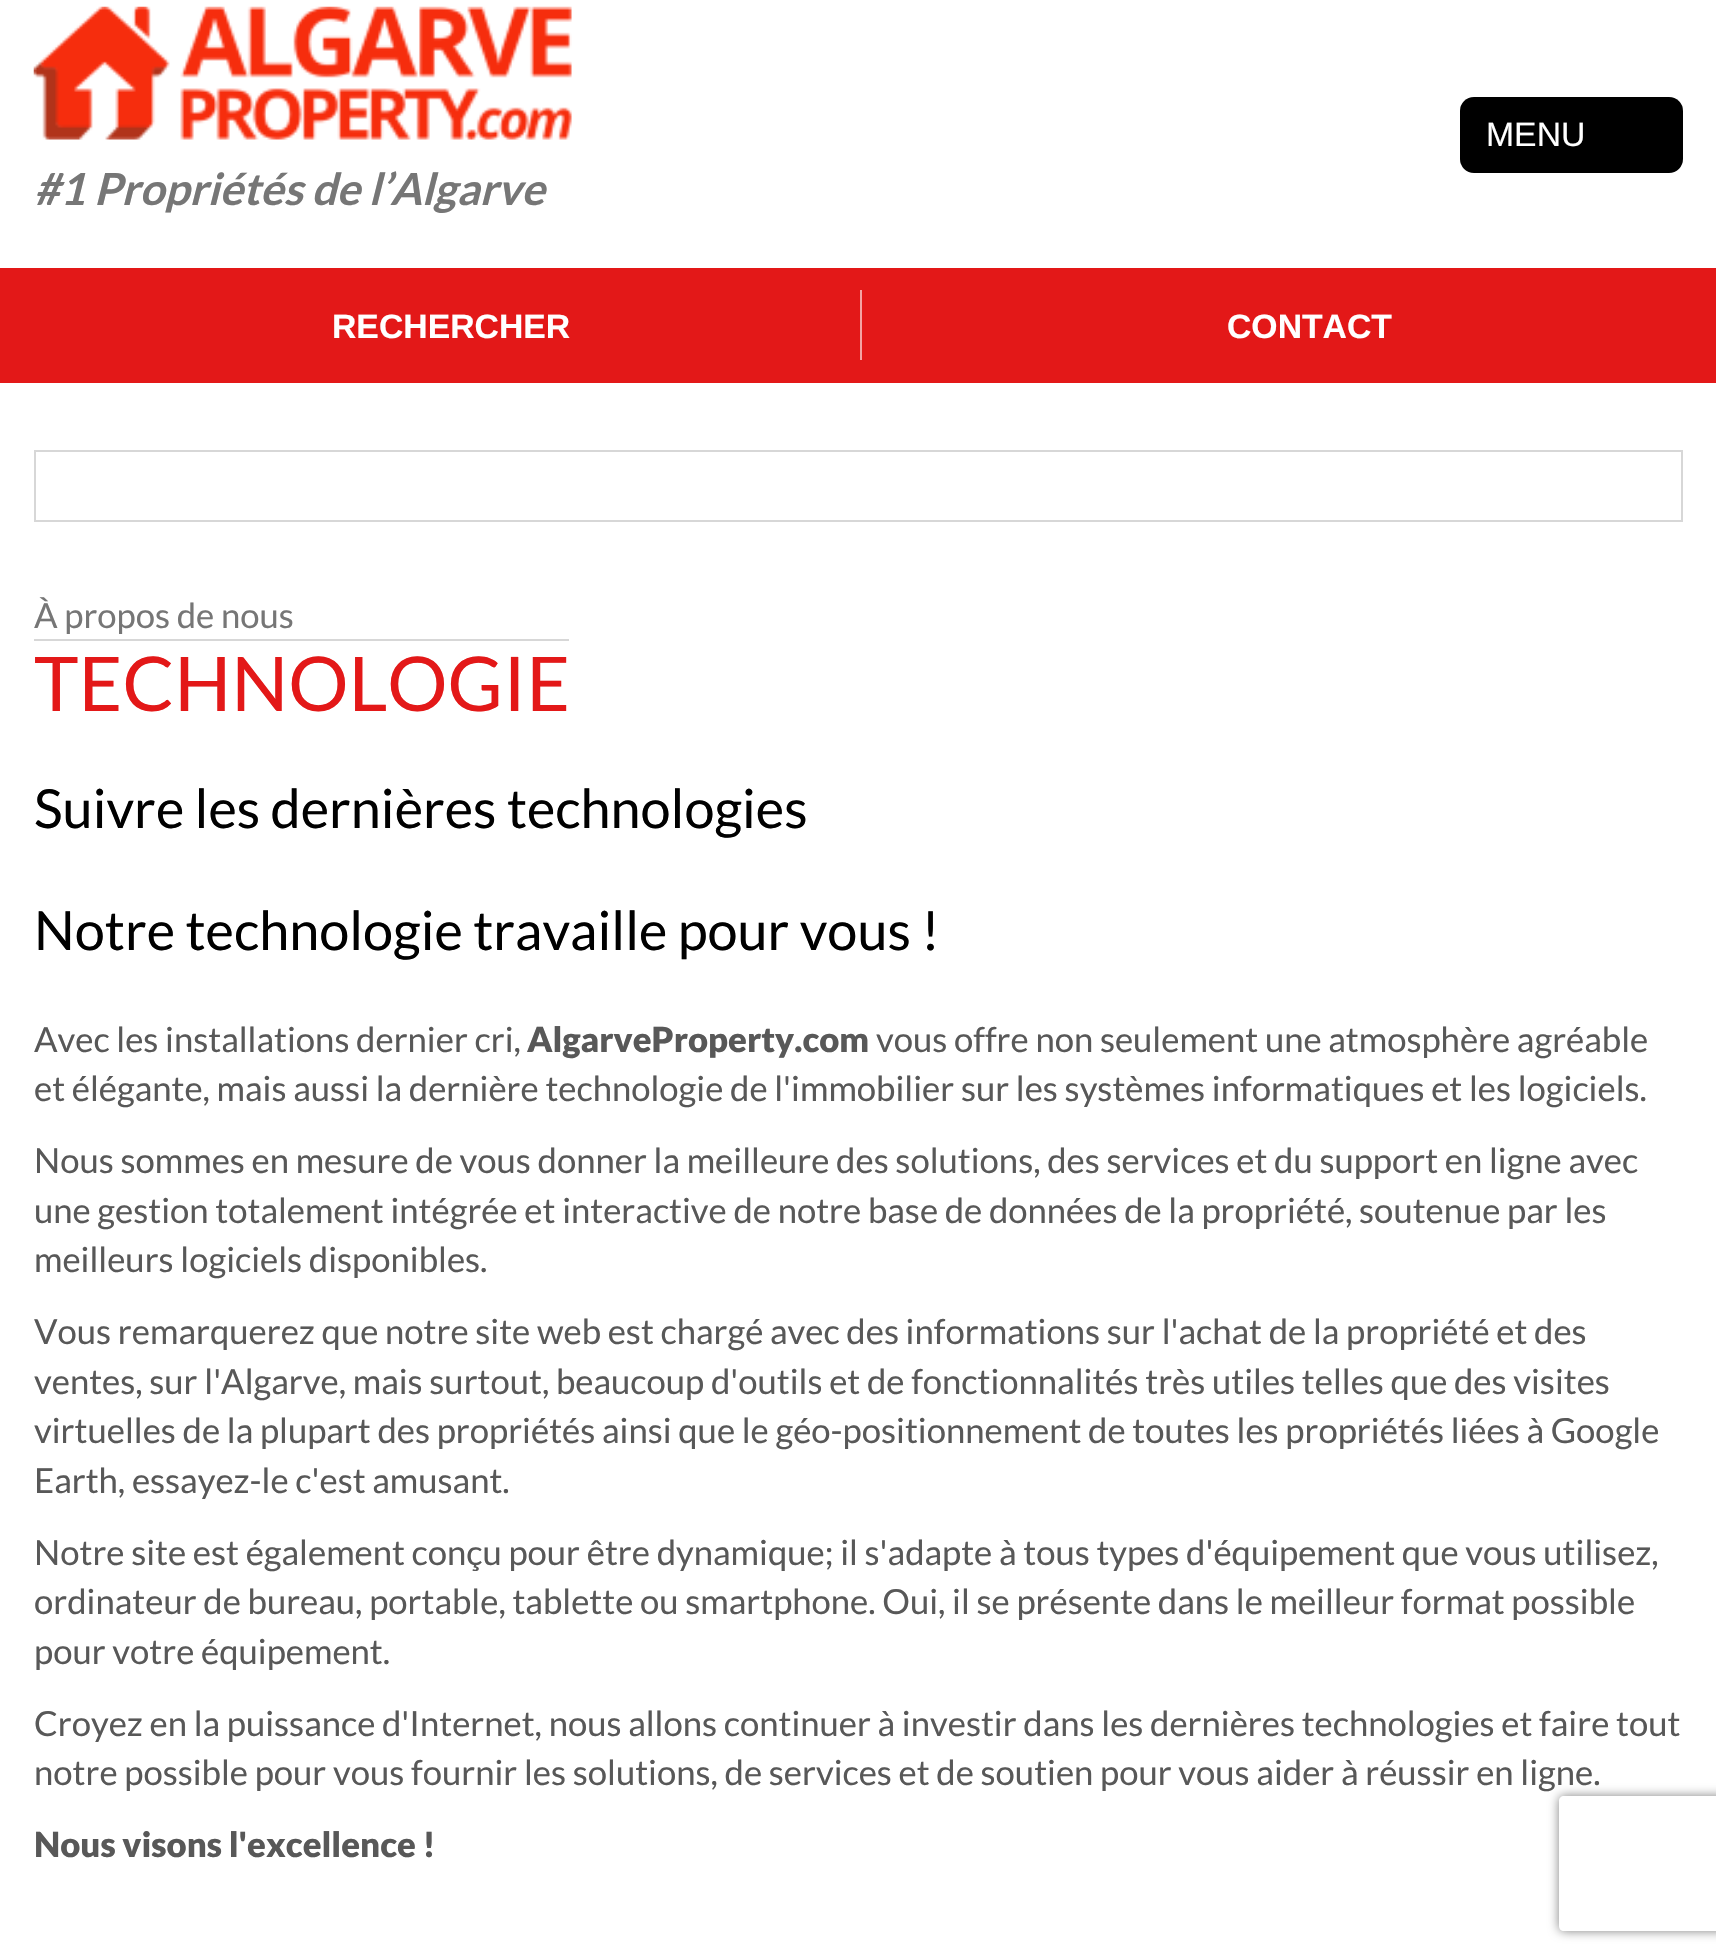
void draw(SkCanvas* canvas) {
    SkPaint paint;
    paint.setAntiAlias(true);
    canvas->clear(0xFFFFFFFF);
    paint.setColor(0xFF000000);
    canvas->drawRoundRect(SkRect::MakeXYWH(1460, 97, 223, 76), 14, 14, paint);
    SkFont font1(fontMgr->matchFamilyStyle("Liberation Sans", SkFontStyle::Normal()), 33.75f);
    font1.setSubpixel(true);
    paint.setColor(0xFFFFFFFF);
    canvas->drawString("MENU", 1486, 146, font1, paint);
    canvas->drawImageRect(SkImages::DeferredFromEncodedData(SkData::MakeFromFileName("img1.png")), SkRect::MakeXYWH(33, 6, 539, 134), SkSamplingOptions());
    SkFont font2(fontMgr->matchFamilyStyle("Lato", SkFontStyle::BoldItalic()), 44.1f);
    font2.setSubpixel(true);
    paint.setColor(0xFF767676);
    canvas->drawString("#1 Propriétés de l’Algarve", 34, 205, font2, paint);
    paint.setColor(0xFFE31818);
    canvas->drawRect(SkRect::MakeXYWH(0, 268, 1716, 115), paint);
    SkFont font3(fontMgr->matchFamilyStyle("Liberation Sans", SkFontStyle::Bold()), 33.75f);
    font3.setSubpixel(true);
    paint.setColor(0xFFFFFFFF);
    canvas->drawString("RECHERCHER", 332, 338, font3, paint);
    paint.setColor(0xFFF4A3A3);
    canvas->drawRect(SkRect::MakeXYWH(860, 290, 2, 70), paint);
    paint.setColor(0xFFFFFFFF);
    canvas->drawString("CONTACT", 1227, 338, font3, paint);
    paint.setStyle(SkPaint::kStroke_Style);
    paint.setStrokeWidth(2);
    paint.setColor(0xFFD7D7D7);
    canvas->drawRect(SkRect::MakeXYWH(35, 451, 1647, 70), paint);
    SkFont font4(fontMgr->matchFamilyStyle("Lato", SkFontStyle::Normal()), 34.65f);
    font4.setSubpixel(true);
    paint.setStyle(SkPaint::kFill_Style);
    paint.setColor(0xFF767676);
    canvas->drawString("À propos de nous", 34, 628, font4, paint);
    paint.setColor(0xFFD7D7D7);
    canvas->drawRect(SkRect::MakeXYWH(34, 639, 535, 2), paint);
    SkFont font5(fontMgr->matchFamilyStyle("Lato", SkFontStyle::Normal()), 75.5f);
    font5.setSubpixel(true);
    paint.setColor(0xFFE31818);
    canvas->drawString("TECHNOLOGIE", 34, 711, font5, paint);
    SkFont font6(fontMgr->matchFamilyStyle("Lato", SkFontStyle::Normal()), 54);
    font6.setSubpixel(true);
    paint.setColor(0xFF000000);
    canvas->drawString("Suivre les dernières technologies", 34, 828, font6, paint);
    canvas->drawString("Notre technologie travaille pour vous !", 34, 950, font6, paint);
    paint.setColor(0xFF585858);
    canvas->drawString("Avec les installations dernier cri,", 34, 1052, font4, paint);
    SkFont font7(fontMgr->matchFamilyStyle("Lato", SkFontStyle(900, SkFontStyle::kNormal_Width, SkFontStyle::kUpright_Slant)), 34.65f);
    font7.setSubpixel(true);
    canvas->drawString("AlgarveProperty.com", 527, 1052, font7, paint);
    canvas->drawString("vous offre non seulement une atmosphère agréable", 876, 1052, font4, paint);
    canvas->drawString("et élégante, mais aussi la dernière technologie de l'immobilier sur les systèmes informatiques et les logiciels.", 34, 1101, font4, paint);
    canvas->drawString("Nous sommes en mesure de vous donner la meilleure des solutions, des services et du support en ligne avec", 34, 1173, font4, paint);
    canvas->drawString("une gestion totalement intégrée et interactive de notre base de données de la propriété, soutenue par les", 34, 1223, font4, paint);
    canvas->drawString("meilleurs logiciels disponibles.", 34, 1272, font4, paint);
    canvas->drawString("Vous remarquerez que notre site web est chargé avec des informations sur l'achat de la propriété et des", 34, 1344, font4, paint);
    canvas->drawString("ventes, sur l'Algarve, mais surtout, beaucoup d'outils et de fonctionnalités très utiles telles que des visites", 34, 1394, font4, paint);
    canvas->drawString("virtuelles de la plupart des propriétés ainsi que le géo-positionnement de toutes les propriétés liées à Google", 34, 1443, font4, paint);
    canvas->drawString("Earth, essayez-le c'est amusant.", 34, 1493, font4, paint);
    canvas->drawString("Notre site est également conçu pour être dynamique; il s'adapte à tous types d'équipement que vous utilisez,", 34, 1565, font4, paint);
    canvas->drawString("ordinateur de bureau, portable, tablette ou smartphone. Oui, il se présente dans le meilleur format possible", 34, 1614, font4, paint);
    canvas->drawString("pour votre équipement.", 34, 1664, font4, paint);
    canvas->drawString("Croyez en la puissance d'Internet, nous allons continuer à investir dans les dernières technologies et faire tout", 34, 1736, font4, paint);
    canvas->drawString("notre possible pour vous fournir les solutions, de services et de soutien pour vous aider à réussir en ligne.", 34, 1785, font4, paint);
    canvas->drawString("Nous visons l'excellence !", 34, 1857, font7, paint);
    canvas->save();
    canvas->clipPath(SkPathBuilder(SkPathFillType::kEvenOdd).moveTo(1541, 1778).lineTo(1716, 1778).lineTo(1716, 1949).lineTo(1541, 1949).close().moveTo(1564, 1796).lineTo(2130, 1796).cubicTo(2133, 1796, 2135, 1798, 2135, 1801).lineTo(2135, 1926).cubicTo(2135, 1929, 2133, 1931, 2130, 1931).lineTo(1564, 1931).cubicTo(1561, 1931, 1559, 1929, 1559, 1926).lineTo(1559, 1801).cubicTo(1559, 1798, 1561, 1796, 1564, 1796).close().detach(), true);
    paint.setColor(0xFF808080);
    paint.setMaskFilter(SkMaskFilter::MakeBlur(kNormal_SkBlurStyle, 5.5f));
    canvas->drawRoundRect(SkRect::MakeXYWH(1559, 1796, 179, 135), 5, 5, paint);
    paint.setMaskFilter(nullptr);
    canvas->restore();
}
